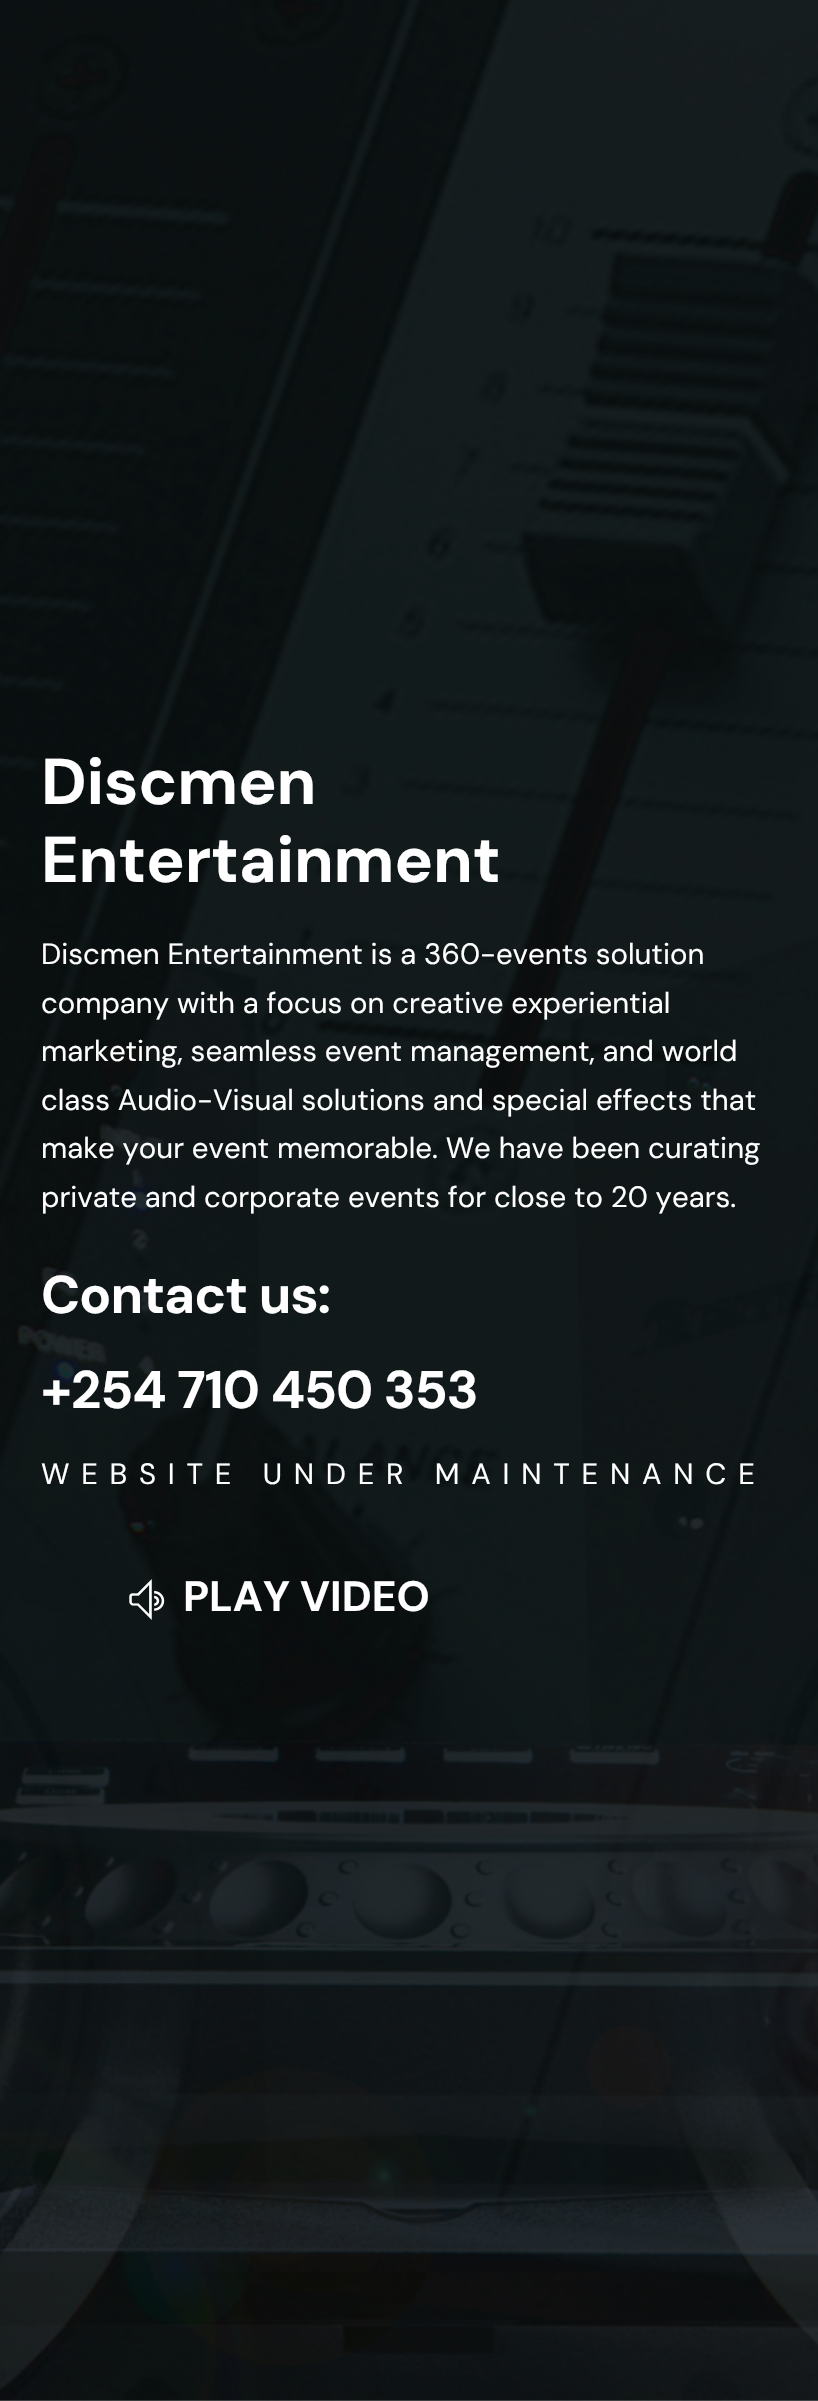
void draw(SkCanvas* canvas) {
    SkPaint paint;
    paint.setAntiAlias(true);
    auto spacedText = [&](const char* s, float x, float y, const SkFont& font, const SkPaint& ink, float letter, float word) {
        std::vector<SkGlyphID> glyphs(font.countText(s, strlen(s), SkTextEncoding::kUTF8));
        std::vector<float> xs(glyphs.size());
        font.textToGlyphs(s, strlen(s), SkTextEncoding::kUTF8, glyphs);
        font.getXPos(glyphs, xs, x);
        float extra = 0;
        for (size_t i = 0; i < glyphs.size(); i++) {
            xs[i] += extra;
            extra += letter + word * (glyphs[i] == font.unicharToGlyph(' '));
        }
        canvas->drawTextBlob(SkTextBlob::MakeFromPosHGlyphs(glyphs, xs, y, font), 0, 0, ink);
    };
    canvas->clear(0xFFFFFFFF);
    canvas->drawImageRect(SkImages::DeferredFromEncodedData(SkData::MakeFromFileName("img1.png")), SkRect::MakeXYWH(0, 0, 818, 2401), SkSamplingOptions());
    SkFont font1(fontMgr->matchFamilyStyle("DM Sans", SkFontStyle::Bold()), 64.75f);
    font1.setSubpixel(true);
    paint.setColor(0xFFFFFFFF);
    spacedText("Discmen", 41, 804, font1, paint, -0.25f, 0);
    spacedText("Entertainment", 41, 882, font1, paint, -0.25f, 0);
    SkFont font2(fontMgr->matchFamilyStyle("DM Sans", SkFontStyle::Normal()), 29.4f);
    font2.setSubpixel(true);
    canvas->drawString("Discmen Entertainment is a 360-events solution", 41, 964, font2, paint);
    canvas->drawString("company with a focus on creative experiential", 41, 1013, font2, paint);
    canvas->drawString("marketing, seamless event management, and world", 41, 1061, font2, paint);
    canvas->drawString("class Audio-Visual solutions and special effects that", 41, 1110, font2, paint);
    canvas->drawString("make your event memorable. We have been curating", 41, 1158, font2, paint);
    canvas->drawString("private and corporate events for close to 20 years.", 41, 1207, font2, paint);
    SkFont font3(fontMgr->matchFamilyStyle("DM Sans", SkFontStyle::Bold()), 53);
    font3.setSubpixel(true);
    spacedText("Contact us:", 41, 1313, font3, paint, -1, 0);
    spacedText("+254 710 450 353", 41, 1408, font3, paint, -1, 0);
    spacedText("WEBSITE UNDER MAINTENANCE", 41, 1484, font2, paint, 11.75f, 0);
    canvas->drawImageRect(SkImages::DeferredFromEncodedData(SkData::MakeFromFileName("img2.png")), SkRect::MakeXYWH(129, 1579, 36, 41), SkSamplingOptions());
    SkFont font4(fontMgr->matchFamilyStyle("DM Sans", SkFontStyle::Bold()), 42.5f);
    font4.setSubpixel(true);
    canvas->drawString("PLAY VIDEO", 183, 1611, font4, paint);
}
